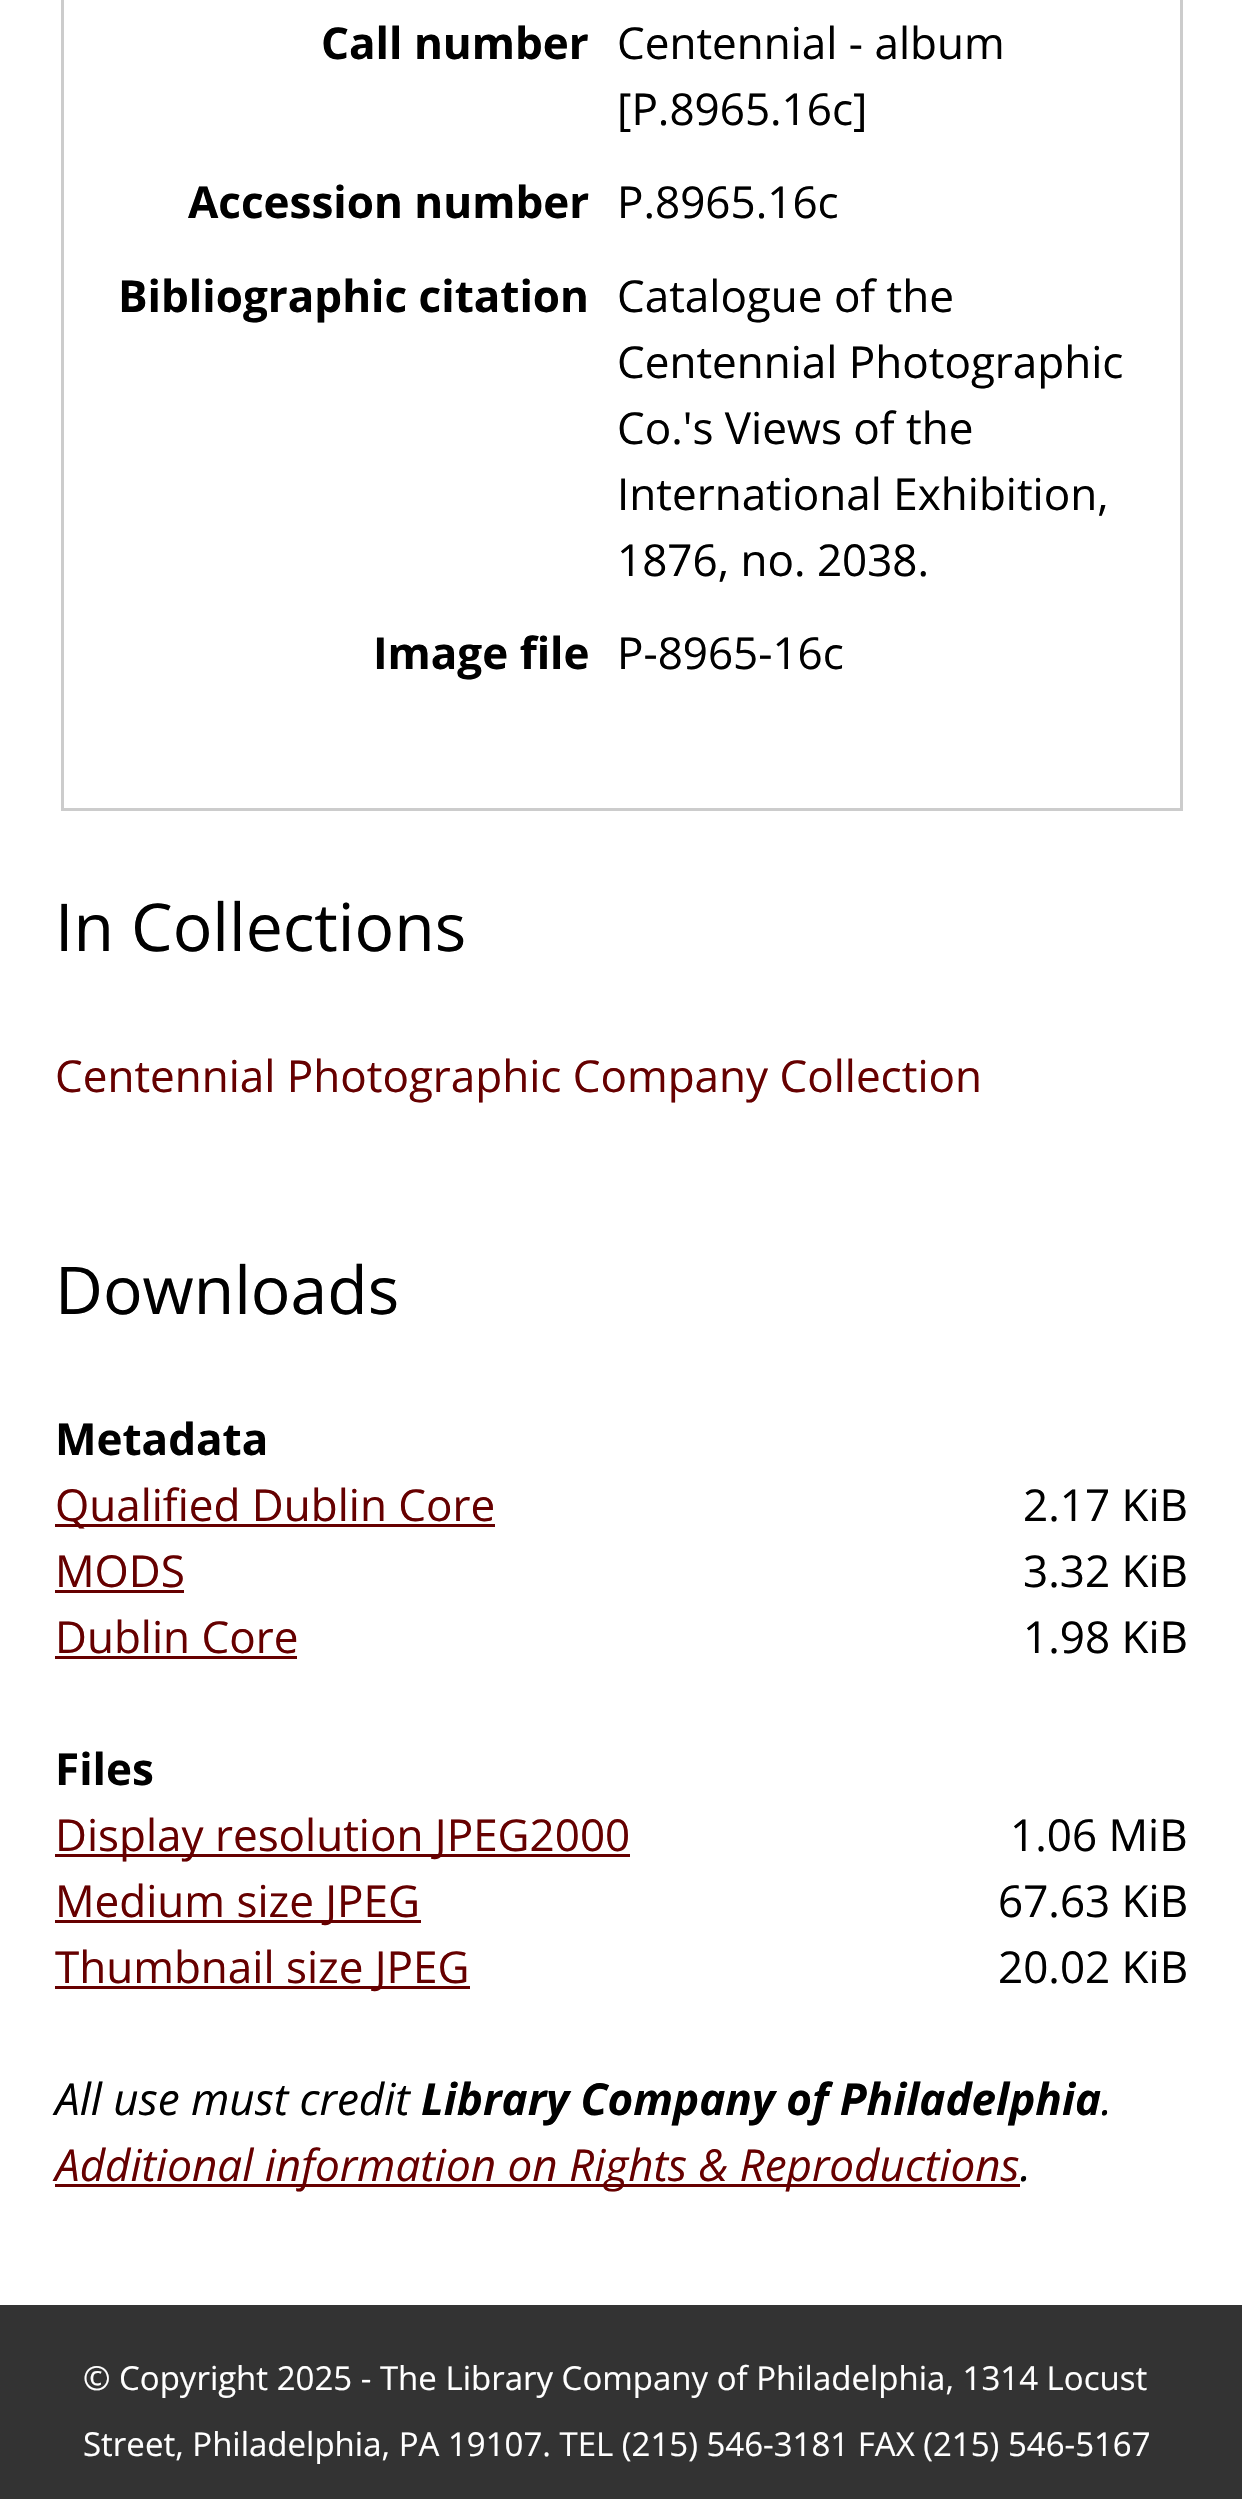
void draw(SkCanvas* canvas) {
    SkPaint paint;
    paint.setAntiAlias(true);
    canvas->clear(0xFFFFFFFF);
    paint.setStyle(SkPaint::kStroke_Style);
    paint.setStrokeWidth(3);
    paint.setColor(0xFFCCCCCC);
    canvas->drawRect(SkRect::MakeXYWH(62.5f, -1.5f, 1119, 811), paint);
    SkFont font1(fontMgr->matchFamilyStyle("Open Sans", SkFontStyle::Bold()), 44);
    font1.setSubpixel(true);
    paint.setStyle(SkPaint::kFill_Style);
    paint.setColor(0xFF000000);
    canvas->drawString("Call number", 321, 59, font1, paint);
    SkFont font2(fontMgr->matchFamilyStyle("Open Sans", SkFontStyle::Normal()), 44);
    font2.setSubpixel(true);
    canvas->drawString("Centennial - album", 617, 59, font2, paint);
    canvas->drawString("[P.8965.16c]", 617, 125, font2, paint);
    canvas->drawString("Accession number", 188, 218, font1, paint);
    canvas->drawString("P.8965.16c", 617, 218, font2, paint);
    canvas->drawString("Bibliographic citation", 118, 312, font1, paint);
    canvas->drawString("Catalogue of the", 617, 312, font2, paint);
    canvas->drawString("Centennial Photographic", 617, 378, font2, paint);
    canvas->drawString("Co.'s Views of the", 617, 444, font2, paint);
    canvas->drawString("International Exhibition,", 617, 510, font2, paint);
    canvas->drawString("1876, no. 2038.", 617, 576, font2, paint);
    canvas->drawString("Image file", 373, 669, font1, paint);
    canvas->drawString("P-8965-16c", 617, 669, font2, paint);
    SkFont font3(fontMgr->matchFamilyStyle("Open Sans", SkFontStyle::Normal()), 66);
    font3.setSubpixel(true);
    canvas->drawString("In Collections", 55, 951, font3, paint);
    paint.setColor(0xFF660000);
    canvas->drawString("Centennial Photographic Company Collection", 55, 1092, font2, paint);
    paint.setColor(0xFF000000);
    canvas->drawString("Downloads", 55, 1314, font3, paint);
    canvas->drawString("Metadata", 55, 1455, font1, paint);
    paint.setColor(0xFF660000);
    canvas->drawRect(SkRect::MakeXYWH(55, 1524, 440, 3), paint);
    canvas->drawString("Qualified Dublin Core", 55, 1521, font2, paint);
    paint.setColor(0xFF000000);
    canvas->drawString("2.17 KiB", 1023, 1521, font2, paint);
    paint.setColor(0xFF660000);
    canvas->drawString("MODS", 55, 1587, font2, paint);
    canvas->drawRect(SkRect::MakeXYWH(55, 1590, 129, 3), paint);
    paint.setColor(0xFF000000);
    canvas->drawString("3.32 KiB", 1023, 1587, font2, paint);
    paint.setColor(0xFF660000);
    canvas->drawString("Dublin Core", 55, 1653, font2, paint);
    canvas->drawRect(SkRect::MakeXYWH(55, 1656, 242, 3), paint);
    paint.setColor(0xFF000000);
    canvas->drawString("1.98 KiB", 1023, 1653, font2, paint);
    canvas->drawString("Files", 55, 1785, font1, paint);
    paint.setColor(0xFF660000);
    canvas->drawRect(SkRect::MakeXYWH(55, 1854, 575, 3), paint);
    canvas->drawString("Display resolution JPEG2000", 55, 1851, font2, paint);
    paint.setColor(0xFF000000);
    canvas->drawString("1.06 MiB", 1010, 1851, font2, paint);
    paint.setColor(0xFF660000);
    canvas->drawRect(SkRect::MakeXYWH(55, 1920, 366, 3), paint);
    canvas->drawString("Medium size JPEG", 55, 1917, font2, paint);
    paint.setColor(0xFF000000);
    canvas->drawString("67.63 KiB", 998, 1917, font2, paint);
    paint.setColor(0xFF660000);
    canvas->drawRect(SkRect::MakeXYWH(55, 1986, 415, 3), paint);
    canvas->drawString("Thumbnail size JPEG", 55, 1983, font2, paint);
    paint.setColor(0xFF000000);
    canvas->drawString("20.02 KiB", 998, 1983, font2, paint);
    SkFont font4(fontMgr->matchFamilyStyle("Open Sans", SkFontStyle::Italic()), 44);
    font4.setSubpixel(true);
    canvas->drawString("All use must credit", 55, 2115, font4, paint);
    SkFont font5(fontMgr->matchFamilyStyle("Open Sans", SkFontStyle::BoldItalic()), 44);
    font5.setSubpixel(true);
    canvas->drawString("Library Company of Philadelphia", 421, 2115, font5, paint);
    canvas->drawString(".", 1101, 2115, font4, paint);
    paint.setColor(0xFF660000);
    canvas->drawRect(SkRect::MakeXYWH(55, 2184, 965, 3), paint);
    canvas->drawString("Additional information on Rights & Reproductions", 55, 2181, font4, paint);
    paint.setColor(0xFF000000);
    canvas->drawString(".", 1020, 2181, font4, paint);
    paint.setColor(0xFF333333);
    canvas->drawRect(SkRect::MakeXYWH(0, 2305, 1242, 194), paint);
    SkFont font6(fontMgr->matchFamilyStyle("Open Sans", SkFontStyle::Normal()), 33);
    font6.setSubpixel(true);
    paint.setColor(0xFFFFFFFF);
    canvas->drawString("© Copyright 2025 - The Library Company of Philadelphia, 1314 Locust", 83, 2390, font6, paint);
    canvas->drawString("Street, Philadelphia, PA 19107. TEL (215) 546-3181 FAX (215) 546-5167", 83, 2456, font6, paint);
}
